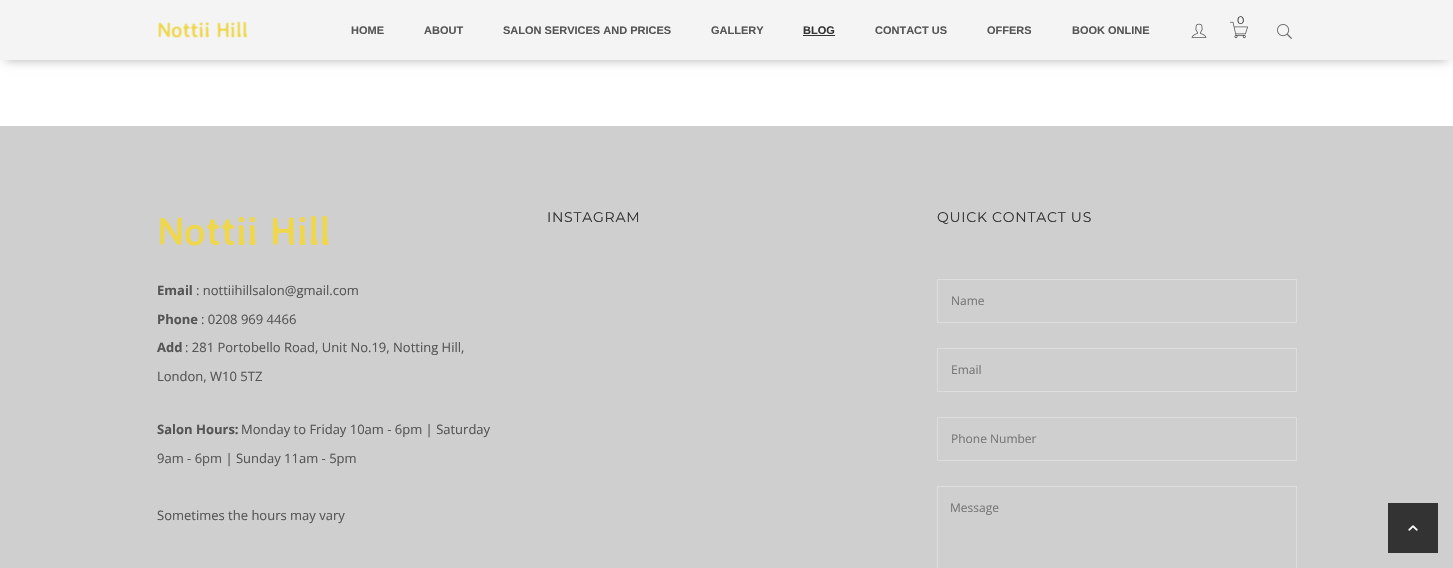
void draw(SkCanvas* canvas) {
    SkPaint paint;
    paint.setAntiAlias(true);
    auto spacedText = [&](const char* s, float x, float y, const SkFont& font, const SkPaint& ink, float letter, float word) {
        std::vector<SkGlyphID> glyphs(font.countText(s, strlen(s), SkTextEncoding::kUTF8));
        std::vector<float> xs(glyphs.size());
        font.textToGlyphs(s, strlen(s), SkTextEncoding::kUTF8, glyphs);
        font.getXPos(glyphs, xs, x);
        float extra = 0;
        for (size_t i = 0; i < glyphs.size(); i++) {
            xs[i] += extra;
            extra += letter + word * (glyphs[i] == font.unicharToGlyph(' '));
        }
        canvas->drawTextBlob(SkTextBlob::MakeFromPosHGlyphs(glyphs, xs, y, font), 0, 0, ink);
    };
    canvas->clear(0xFFFFFFFF);
    paint.setColor(0x4D000000);
    paint.setMaskFilter(SkMaskFilter::MakeBlur(kNormal_SkBlurStyle, 5));
    canvas->drawRect(SkRect::MakeXYWH(5, 10, 1443, 50), paint);
    paint.setMaskFilter(nullptr);
    paint.setColor(0xFFF4F4F4);
    canvas->drawRect(SkRect::MakeXYWH(0, 0, 1453, 60), paint);
    canvas->drawImageRect(SkImages::DeferredFromEncodedData(SkData::MakeFromFileName("img1.png")), SkRect::MakeXYWH(158, 21, 90, 18), SkSamplingOptions());
    SkFont font1(fontMgr->matchFamilyStyle("Liberation Sans", SkFontStyle::Bold()), 11);
    font1.setSubpixel(true);
    paint.setColor(0xFF555555);
    canvas->drawString("HOME", 351, 34, font1, paint);
    canvas->drawString("ABOUT", 424, 34, font1, paint);
    canvas->drawString("SALON SERVICES AND PRICES", 503, 34, font1, paint);
    canvas->drawString("GALLERY", 711, 34, font1, paint);
    paint.setColor(0xFF333333);
    canvas->drawString("BLOG", 803, 34, font1, paint);
    canvas->drawRect(SkRect::MakeXYWH(803, 35, 32, 1), paint);
    paint.setColor(0xFF555555);
    canvas->drawString("CONTACT US", 875, 34, font1, paint);
    canvas->drawString("OFFERS", 987, 34, font1, paint);
    canvas->drawString("BOOK ONLINE", 1072, 34, font1, paint);
    canvas->drawImageRect(SkImages::DeferredFromEncodedData(SkData::MakeFromFileName("img2.png")), SkRect::MakeXYWH(1191, 23, 16, 15), SkSamplingOptions());
    canvas->drawImageRect(SkImages::DeferredFromEncodedData(SkData::MakeFromFileName("img3.png")), SkRect::MakeXYWH(1230, 21, 18, 18), SkSamplingOptions());
    SkFont font2(fontMgr->matchFamilyStyle("Montserrat", SkFontStyle::Normal()), 11);
    font2.setSubpixel(true);
    paint.setColor(0xFF333333);
    spacedText("0", 1237, 24, font2, paint, 1, 0);
    canvas->drawImageRect(SkImages::DeferredFromEncodedData(SkData::MakeFromFileName("img4.png")), SkRect::MakeXYWH(1277, 24, 15, 15), SkSamplingOptions());
    paint.setColor(0xFFCFCFCF);
    canvas->drawRect(SkRect::MakeXYWH(0, 126, 1453, 442), paint);
    canvas->drawImageRect(SkImages::DeferredFromEncodedData(SkData::MakeFromFileName("img5.png")), SkRect::MakeXYWH(160, 216, 169, 30), SkSamplingOptions());
    SkFont font3(fontMgr->matchFamilyStyle("Open Sans", SkFontStyle::Bold()), 13);
    font3.setSubpixel(true);
    paint.setColor(0xFF555555);
    canvas->drawString("Email", 157, 295, font3, paint);
    SkFont font4(fontMgr->matchFamilyStyle("Open Sans", SkFontStyle::Normal()), 13);
    font4.setSubpixel(true);
    canvas->drawString(": nottiihillsalon@gmail.com", 196, 295, font4, paint);
    canvas->drawString("Phone", 157, 324, font3, paint);
    canvas->drawString(": 0208 969 4466", 201, 324, font4, paint);
    canvas->drawString("Add", 157, 352, font3, paint);
    canvas->drawString(": 281 Portobello Road, Unit No.19, Notting Hill,", 185, 352, font4, paint);
    canvas->drawString("London, W10 5TZ", 157, 381, font4, paint);
    canvas->drawString("Salon Hours:", 157, 434, font3, paint);
    canvas->drawString("Monday to Friday 10am - 6pm | Saturday", 241, 434, font4, paint);
    canvas->drawString("9am - 6pm | Sunday 11am - 5pm", 157, 463, font4, paint);
    canvas->drawString("Sometimes the hours may vary", 157, 520, font4, paint);
    SkFont font5(fontMgr->matchFamilyStyle("Montserrat", SkFontStyle::Normal()), 14);
    font5.setSubpixel(true);
    paint.setColor(0xFF333333);
    spacedText("INSTAGRAM", 547, 222, font5, paint, 0.75f, 0);
    spacedText("QUICK CONTACT US", 937, 222, font5, paint, 0.75f, 0);
    paint.setStyle(SkPaint::kStroke_Style);
    paint.setStrokeWidth(1);
    paint.setColor(0xFFDDDDDD);
    canvas->drawRect(SkRect::MakeXYWH(937.5f, 279.5f, 359, 43), paint);
    SkFont font6(fontMgr->matchFamilyStyle("Open Sans", SkFontStyle::Normal()), 12);
    font6.setSubpixel(true);
    paint.setStyle(SkPaint::kFill_Style);
    paint.setColor(0xFF777777);
    canvas->drawString("Name", 951, 305, font6, paint);
    paint.setStyle(SkPaint::kStroke_Style);
    paint.setColor(0xFFDDDDDD);
    canvas->drawRect(SkRect::MakeXYWH(937.5f, 348.5f, 359, 43), paint);
    paint.setStyle(SkPaint::kFill_Style);
    paint.setColor(0xFF777777);
    canvas->drawString("Email", 951, 374, font6, paint);
    paint.setStyle(SkPaint::kStroke_Style);
    paint.setColor(0xFFDDDDDD);
    canvas->drawRect(SkRect::MakeXYWH(937.5f, 417.5f, 359, 43), paint);
    paint.setStyle(SkPaint::kFill_Style);
    paint.setColor(0xFF777777);
    canvas->drawString("Phone Number", 951, 443, font6, paint);
    paint.setStyle(SkPaint::kStroke_Style);
    paint.setColor(0xFFDDDDDD);
    canvas->drawRect(SkRect::MakeXYWH(937.5f, 486.5f, 359, 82), paint);
    paint.setStyle(SkPaint::kFill_Style);
    paint.setColor(0xFF777777);
    canvas->drawString("Message", 950, 512, font6, paint);
    paint.setColor(0xFF333333);
    canvas->drawRect(SkRect::MakeXYWH(1388, 503, 50, 50), paint);
    canvas->drawImageRect(SkImages::DeferredFromEncodedData(SkData::MakeFromFileName("img6.png")), SkRect::MakeXYWH(1408, 525, 10, 6), SkSamplingOptions());
}
